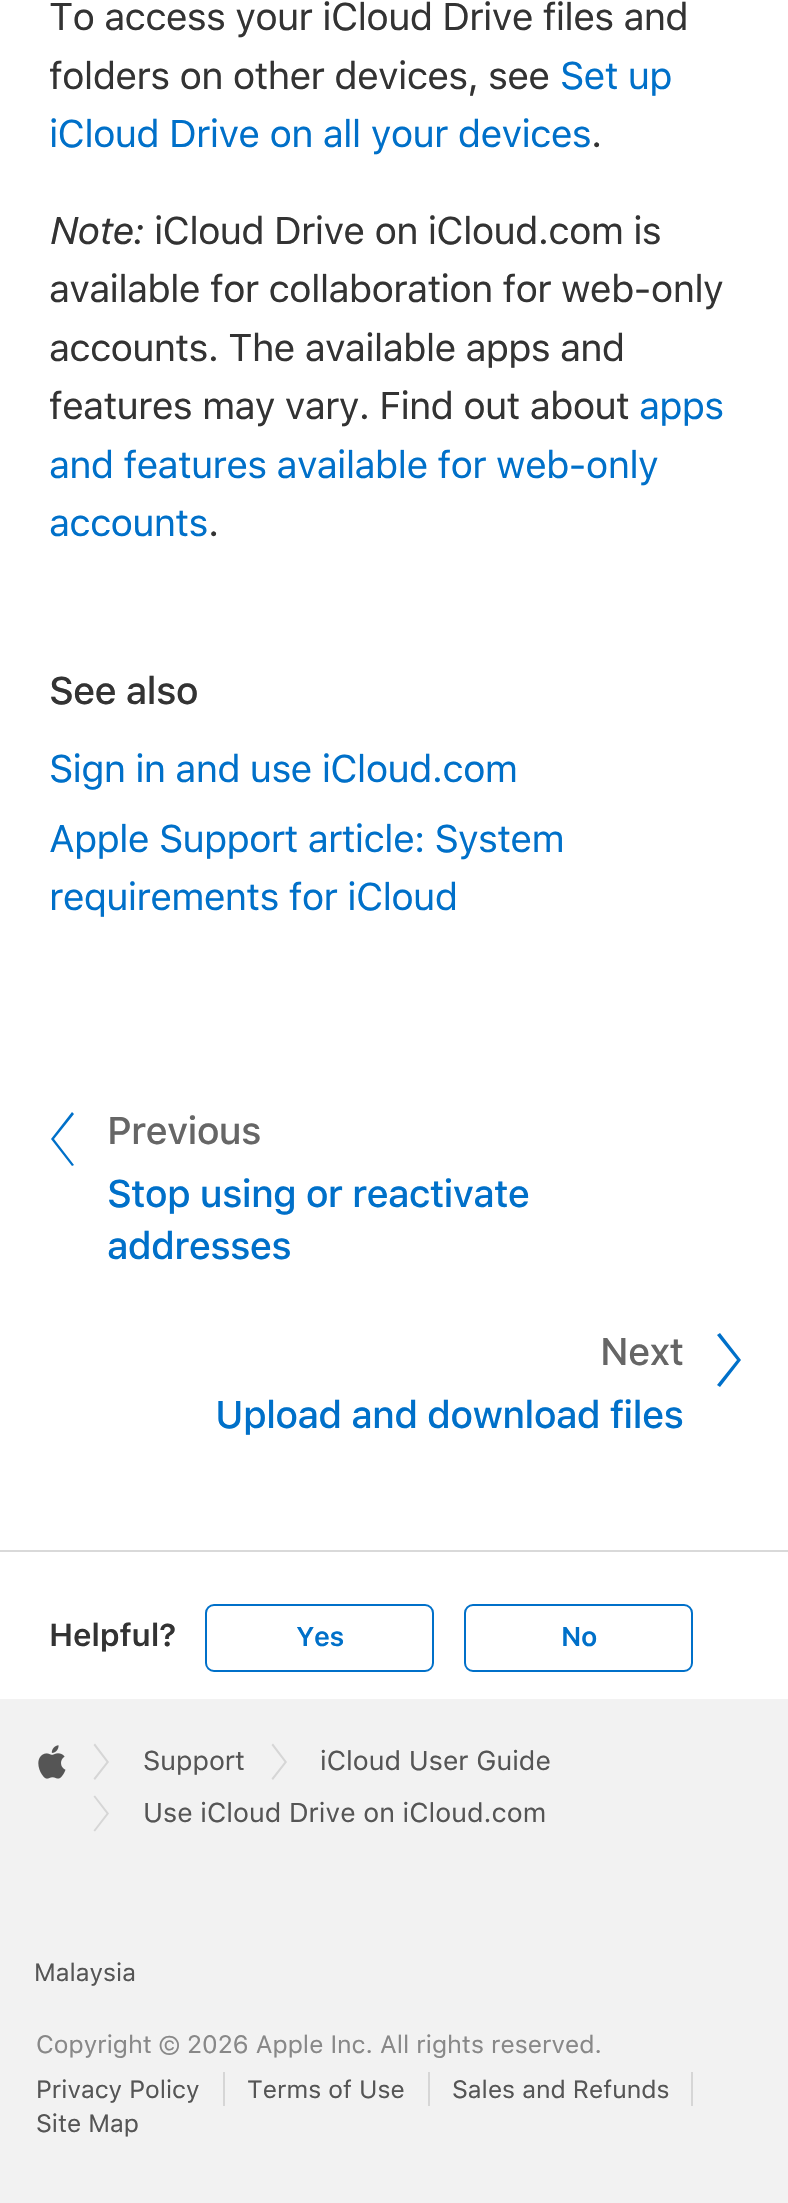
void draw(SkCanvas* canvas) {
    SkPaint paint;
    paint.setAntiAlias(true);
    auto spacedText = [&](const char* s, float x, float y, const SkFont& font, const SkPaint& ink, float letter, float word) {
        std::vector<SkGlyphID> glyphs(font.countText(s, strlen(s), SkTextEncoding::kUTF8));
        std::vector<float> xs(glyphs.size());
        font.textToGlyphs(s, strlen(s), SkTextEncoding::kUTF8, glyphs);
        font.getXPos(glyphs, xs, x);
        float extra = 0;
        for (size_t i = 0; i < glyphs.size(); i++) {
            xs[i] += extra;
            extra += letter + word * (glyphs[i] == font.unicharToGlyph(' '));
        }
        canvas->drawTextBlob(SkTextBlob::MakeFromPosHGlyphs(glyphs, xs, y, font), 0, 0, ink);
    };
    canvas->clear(0xFFFFFFFF);
    SkFont font1(fontMgr->matchFamilyStyle("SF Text", SkFontStyle::Normal()), 38.25f);
    font1.setSubpixel(true);
    paint.setColor(0xFF333333);
    spacedText("To access your iCloud Drive files and", 49, 30, font1, paint, -0.8f, 0);
    spacedText("folders on other devices, see", 49, 89, font1, paint, -0.8f, 0);
    paint.setColor(0xFF0070C9);
    spacedText("Set up", 560, 89, font1, paint, -0.8f, 0);
    spacedText("iCloud Drive on all your devices", 49, 147, font1, paint, -0.8f, 0);
    paint.setColor(0xFF333333);
    spacedText(".", 591, 147, font1, paint, -0.8f, 0);
    SkFont font2(fontMgr->matchFamilyStyle("SF Text", SkFontStyle::Italic()), 38.25f);
    font2.setSubpixel(true);
    spacedText("Note:", 49, 244, font2, paint, -0.8f, 0);
    spacedText("iCloud Drive on iCloud.com is", 154, 244, font1, paint, -0.8f, 0);
    spacedText("available for collaboration for web-only", 49, 302, font1, paint, -0.8f, 0);
    spacedText("accounts. The available apps and", 49, 361, font1, paint, -0.8f, 0);
    spacedText("features may vary. Find out about", 49, 419, font1, paint, -0.8f, 0);
    paint.setColor(0xFF0070C9);
    spacedText("apps", 639, 419, font1, paint, -0.8f, 0);
    spacedText("and features available for web-only", 49, 478, font1, paint, -0.8f, 0);
    spacedText("accounts", 49, 536, font1, paint, -0.8f, 0);
    paint.setColor(0xFF333333);
    spacedText(".", 208, 536, font1, paint, -0.8f, 0);
    SkFont font3(fontMgr->matchFamilyStyle("SF Text", SkFontStyle(500, SkFontStyle::kNormal_Width, SkFontStyle::kUpright_Slant)), 38.25f);
    font3.setSubpixel(true);
    spacedText("See also", 49, 704, font3, paint, -0.8f, 0);
    paint.setColor(0xFF0070C9);
    spacedText("Sign in and use iCloud.com", 49, 782, font1, paint, -0.8f, 0);
    spacedText("Apple Support article: System", 49, 852, font1, paint, -0.8f, 0);
    spacedText("requirements for iCloud", 49, 910, font1, paint, -0.8f, 0);
    canvas->drawPath(SkPathBuilder().moveTo(72, 1112).lineTo(51, 1139).lineTo(72, 1166).lineTo(74, 1165).lineTo(54, 1139).lineTo(74, 1114).close().detach(), paint);
    paint.setColor(0xFF666666);
    spacedText("Previous", 107, 1144, font3, paint, -0.8f, 0);
    paint.setColor(0xFF0070C9);
    spacedText("Stop using or reactivate", 107, 1207, font3, paint, -0.8f, 0);
    spacedText("addresses", 107, 1259, font3, paint, -0.8f, 0);
    paint.setColor(0xFF666666);
    spacedText("Next", 600, 1365, font3, paint, -0.8f, 0);
    paint.setColor(0xFF0070C9);
    canvas->drawPath(SkPathBuilder().moveTo(717, 1335).lineTo(737, 1360).lineTo(717, 1385).lineTo(720, 1387).lineTo(741, 1360).lineTo(720, 1333).close().detach(), paint);
    spacedText("Upload and download files", 215, 1428, font3, paint, -0.8f, 0);
    paint.setColor(0xFFD9D9D9);
    canvas->drawRect(SkRect::MakeXYWH(0, 1550, 788, 2), paint);
    SkFont font4(fontMgr->matchFamilyStyle("SF Text", SkFontStyle(600, SkFontStyle::kNormal_Width, SkFontStyle::kUpright_Slant)), 31.5f);
    font4.setSubpixel(true);
    paint.setColor(0xFF333333);
    spacedText("Helpful?", 49, 1646, font4, paint, -0.25f, 0);
    paint.setStyle(SkPaint::kStroke_Style);
    paint.setStrokeWidth(2);
    paint.setColor(0xFF0070C9);
    canvas->drawRoundRect(SkRect::MakeXYWH(206, 1605, 227, 66), 8, 8, paint);
    SkFont font5(fontMgr->matchFamilyStyle("SF Text", SkFontStyle(600, SkFontStyle::kNormal_Width, SkFontStyle::kUpright_Slant)), 27);
    font5.setSubpixel(true);
    paint.setStyle(SkPaint::kFill_Style);
    spacedText("Yes", 296, 1646, font5, paint, -0.5f, 0);
    paint.setStyle(SkPaint::kStroke_Style);
    canvas->drawRoundRect(SkRect::MakeXYWH(465, 1605, 227, 66), 8, 8, paint);
    paint.setStyle(SkPaint::kFill_Style);
    spacedText("No", 561, 1646, font5, paint, -0.5f, 0);
    paint.setColor(0xFFF2F2F2);
    canvas->drawRect(SkRect::MakeXYWH(0, 1699, 788, 504), paint);
    canvas->drawImageRect(SkImages::DeferredFromEncodedData(SkData::MakeFromFileName("img1.png")), SkRect::MakeXYWH(38, 1745, 28, 34), SkSamplingOptions());
    paint.setColor(0xFFD6D6D6);
    canvas->drawPath(SkPathBuilder().moveTo(95, 1743.5f).lineTo(109, 1762).lineTo(95, 1780).lineTo(93.5f, 1778.5f).lineTo(106.5f, 1762).lineTo(93.5f, 1745).close().detach(), paint);
    SkFont font6(fontMgr->matchFamilyStyle("SF Text", SkFontStyle::Normal()), 27);
    font6.setSubpixel(true);
    paint.setColor(0xFF555555);
    canvas->drawString("Support", 143, 1770, font6, paint);
    paint.setColor(0xFFD6D6D6);
    canvas->drawPath(SkPathBuilder().moveTo(273, 1743.5f).lineTo(287, 1762).lineTo(273, 1780).lineTo(271.5f, 1778.5f).lineTo(284.5f, 1762).lineTo(271.5f, 1745).close().detach(), paint);
    paint.setColor(0xFF555555);
    canvas->drawString("iCloud User Guide", 320, 1770, font6, paint);
    paint.setColor(0xFFD6D6D6);
    canvas->drawPath(SkPathBuilder().moveTo(95, 1795.5f).lineTo(109, 1813.5f).lineTo(95, 1831.5f).lineTo(93.5f, 1830.5f).lineTo(106.5f, 1813.5f).lineTo(93.5f, 1796.5f).close().detach(), paint);
    paint.setColor(0xFF555555);
    canvas->drawString("Use iCloud Drive on iCloud.com", 143, 1822, font6, paint);
    SkFont font7(fontMgr->matchFamilyStyle("SF Text", SkFontStyle::Normal()), 24.9f);
    font7.setSubpixel(true);
    canvas->drawString("Malaysia", 34, 1981, font7, paint);
    paint.setColor(0xFF888888);
    canvas->drawString("Copyright © 2026 Apple Inc. All rights reserved.", 36, 2053, font7, paint);
    paint.setColor(0xFFD6D6D6);
    canvas->drawRect(SkRect::MakeXYWH(223, 2072, 2, 34), paint);
    paint.setColor(0xFF555555);
    canvas->drawString("Privacy Policy", 36, 2098, font7, paint);
    paint.setColor(0xFFD6D6D6);
    canvas->drawRect(SkRect::MakeXYWH(428, 2072, 2, 34), paint);
    paint.setColor(0xFF555555);
    canvas->drawString("Terms of Use", 247, 2098, font7, paint);
    paint.setColor(0xFFD6D6D6);
    canvas->drawRect(SkRect::MakeXYWH(691, 2072, 2, 34), paint);
    paint.setColor(0xFF555555);
    canvas->drawString("Sales and Refunds", 452, 2098, font7, paint);
    canvas->drawString("Site Map", 36, 2132, font7, paint);
}
